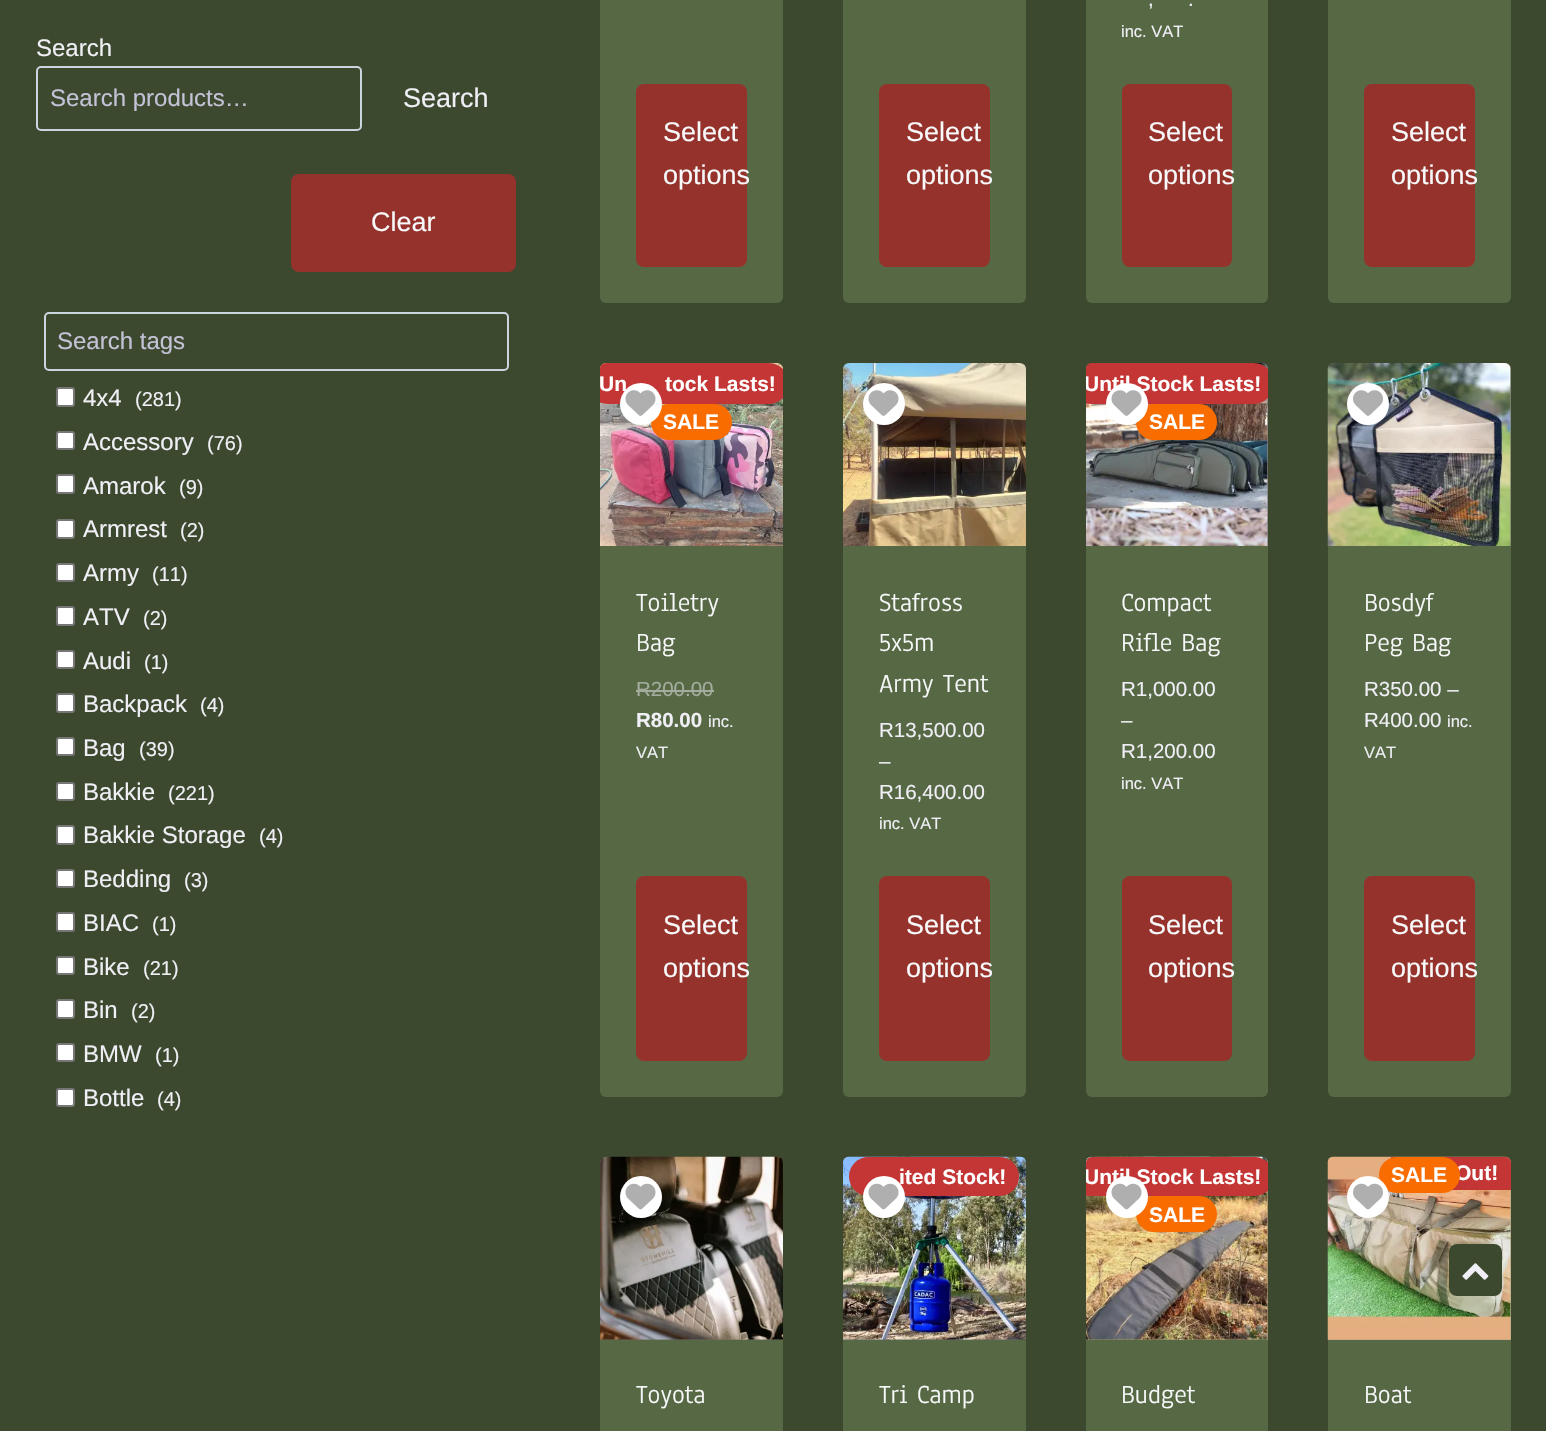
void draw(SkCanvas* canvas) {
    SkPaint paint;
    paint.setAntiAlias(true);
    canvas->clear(0xFF3C492F);
    SkFont font1(fontMgr->matchFamilyStyle("Liberation Sans", SkFontStyle::Normal()), 24);
    font1.setSubpixel(true);
    paint.setColor(0xFFEFEFF5);
    canvas->drawString("Search", 36, 56, font1, paint);
    paint.setStyle(SkPaint::kStroke_Style);
    paint.setStrokeWidth(2);
    paint.setColor(0xFFCBD5E0);
    canvas->drawRoundRect(SkRect::MakeXYWH(37, 67, 324, 63), 4, 4, paint);
    paint.setStyle(SkPaint::kFill_Style);
    paint.setColor(0xFFC3C2D6);
    canvas->drawString("Search products…", 50, 106, font1, paint);
    SkFont font2(fontMgr->matchFamilyStyle("Liberation Sans", SkFontStyle::Normal()), 27);
    font2.setSubpixel(true);
    paint.setColor(0xFFEFEFF5);
    canvas->drawString("Search", 403, 107, font2, paint);
    paint.setColor(0xFF95322B);
    canvas->drawRoundRect(SkRect::MakeXYWH(291, 174, 225, 98), 8, 8, paint);
    paint.setColor(0xFFF8F9FA);
    canvas->drawString("Clear", 371, 231, font2, paint);
    paint.setStyle(SkPaint::kStroke_Style);
    paint.setColor(0xFFCBD5E0);
    canvas->drawRoundRect(SkRect::MakeXYWH(45, 313, 463, 57), 4, 4, paint);
    paint.setStyle(SkPaint::kFill_Style);
    paint.setColor(0xFFC3C2D6);
    canvas->drawString("Search tags", 57, 349, font1, paint);
    paint.setColor(0xFFFFFFFF);
    canvas->drawRoundRect(SkRect::MakeXYWH(57, 388, 17, 18), 2, 2, paint);
    paint.setStyle(SkPaint::kStroke_Style);
    paint.setColor(0xFF767676);
    canvas->drawRoundRect(SkRect::MakeXYWH(57, 388, 17, 18), 2, 2, paint);
    paint.setStyle(SkPaint::kFill_Style);
    paint.setColor(0xFFEFEFF5);
    canvas->drawString("4x4", 83, 406, font1, paint);
    SkFont font3(fontMgr->matchFamilyStyle("Liberation Sans", SkFontStyle::Normal()), 20);
    font3.setSubpixel(true);
    canvas->drawString("(281)", 135, 406, font3, paint);
    paint.setColor(0xFFFFFFFF);
    canvas->drawRoundRect(SkRect::MakeXYWH(57, 432, 17, 17), 2, 2, paint);
    paint.setStyle(SkPaint::kStroke_Style);
    paint.setColor(0xFF767676);
    canvas->drawRoundRect(SkRect::MakeXYWH(57, 432, 17, 17), 2, 2, paint);
    paint.setStyle(SkPaint::kFill_Style);
    paint.setColor(0xFFEFEFF5);
    canvas->drawString("Accessory", 83, 450, font1, paint);
    canvas->drawString("(76)", 207, 450, font3, paint);
    paint.setColor(0xFFFFFFFF);
    canvas->drawRoundRect(SkRect::MakeXYWH(57, 475, 17, 18), 2, 2, paint);
    paint.setStyle(SkPaint::kStroke_Style);
    paint.setColor(0xFF767676);
    canvas->drawRoundRect(SkRect::MakeXYWH(57, 475, 17, 18), 2, 2, paint);
    paint.setStyle(SkPaint::kFill_Style);
    paint.setColor(0xFFEFEFF5);
    canvas->drawString("Amarok", 83, 494, font1, paint);
    canvas->drawString("(9)", 179, 494, font3, paint);
    paint.setColor(0xFFFFFFFF);
    canvas->drawRoundRect(SkRect::MakeXYWH(57, 520, 17, 18), 2, 2, paint);
    paint.setStyle(SkPaint::kStroke_Style);
    paint.setColor(0xFF767676);
    canvas->drawRoundRect(SkRect::MakeXYWH(57, 520, 17, 18), 2, 2, paint);
    paint.setStyle(SkPaint::kFill_Style);
    paint.setColor(0xFFEFEFF5);
    canvas->drawString("Armrest", 83, 537, font1, paint);
    canvas->drawString("(2)", 180, 537, font3, paint);
    paint.setColor(0xFFFFFFFF);
    canvas->drawRoundRect(SkRect::MakeXYWH(57, 564, 17, 17), 2, 2, paint);
    paint.setStyle(SkPaint::kStroke_Style);
    paint.setColor(0xFF767676);
    canvas->drawRoundRect(SkRect::MakeXYWH(57, 564, 17, 17), 2, 2, paint);
    paint.setStyle(SkPaint::kFill_Style);
    paint.setColor(0xFFEFEFF5);
    canvas->drawString("Army", 83, 581, font1, paint);
    canvas->drawString("(11)", 152, 581, font3, paint);
    paint.setColor(0xFFFFFFFF);
    canvas->drawRoundRect(SkRect::MakeXYWH(57, 607, 17, 18), 2, 2, paint);
    paint.setStyle(SkPaint::kStroke_Style);
    paint.setColor(0xFF767676);
    canvas->drawRoundRect(SkRect::MakeXYWH(57, 607, 17, 18), 2, 2, paint);
    paint.setStyle(SkPaint::kFill_Style);
    paint.setColor(0xFFEFEFF5);
    canvas->drawString("ATV", 83, 625, font1, paint);
    canvas->drawString("(2)", 143, 625, font3, paint);
    paint.setColor(0xFFFFFFFF);
    canvas->drawRoundRect(SkRect::MakeXYWH(57, 651, 17, 17), 2, 2, paint);
    paint.setStyle(SkPaint::kStroke_Style);
    paint.setColor(0xFF767676);
    canvas->drawRoundRect(SkRect::MakeXYWH(57, 651, 17, 17), 2, 2, paint);
    paint.setStyle(SkPaint::kFill_Style);
    paint.setColor(0xFFEFEFF5);
    canvas->drawString("Audi", 83, 669, font1, paint);
    canvas->drawString("(1)", 144, 669, font3, paint);
    paint.setColor(0xFFFFFFFF);
    canvas->drawRoundRect(SkRect::MakeXYWH(57, 694, 17, 18), 2, 2, paint);
    paint.setStyle(SkPaint::kStroke_Style);
    paint.setColor(0xFF767676);
    canvas->drawRoundRect(SkRect::MakeXYWH(57, 694, 17, 18), 2, 2, paint);
    paint.setStyle(SkPaint::kFill_Style);
    paint.setColor(0xFFEFEFF5);
    canvas->drawString("Backpack", 83, 712, font1, paint);
    canvas->drawString("(4)", 200, 712, font3, paint);
    paint.setColor(0xFFFFFFFF);
    canvas->drawRoundRect(SkRect::MakeXYWH(57, 738, 17, 17), 2, 2, paint);
    paint.setStyle(SkPaint::kStroke_Style);
    paint.setColor(0xFF767676);
    canvas->drawRoundRect(SkRect::MakeXYWH(57, 738, 17, 17), 2, 2, paint);
    paint.setStyle(SkPaint::kFill_Style);
    paint.setColor(0xFFEFEFF5);
    canvas->drawString("Bag", 83, 756, font1, paint);
    canvas->drawString("(39)", 139, 756, font3, paint);
    paint.setColor(0xFFFFFFFF);
    canvas->drawRoundRect(SkRect::MakeXYWH(57, 783, 17, 17), 2, 2, paint);
    paint.setStyle(SkPaint::kStroke_Style);
    paint.setColor(0xFF767676);
    canvas->drawRoundRect(SkRect::MakeXYWH(57, 783, 17, 17), 2, 2, paint);
    paint.setStyle(SkPaint::kFill_Style);
    paint.setColor(0xFFEFEFF5);
    canvas->drawString("Bakkie", 83, 800, font1, paint);
    canvas->drawString("(221)", 168, 800, font3, paint);
    paint.setColor(0xFFFFFFFF);
    canvas->drawRoundRect(SkRect::MakeXYWH(57, 826, 17, 18), 2, 2, paint);
    paint.setStyle(SkPaint::kStroke_Style);
    paint.setColor(0xFF767676);
    canvas->drawRoundRect(SkRect::MakeXYWH(57, 826, 17, 18), 2, 2, paint);
    paint.setStyle(SkPaint::kFill_Style);
    paint.setColor(0xFFEFEFF5);
    canvas->drawString("Bakkie Storage", 83, 843, font1, paint);
    canvas->drawString("(4)", 259, 843, font3, paint);
    paint.setColor(0xFFFFFFFF);
    canvas->drawRoundRect(SkRect::MakeXYWH(57, 870, 17, 17), 2, 2, paint);
    paint.setStyle(SkPaint::kStroke_Style);
    paint.setColor(0xFF767676);
    canvas->drawRoundRect(SkRect::MakeXYWH(57, 870, 17, 17), 2, 2, paint);
    paint.setStyle(SkPaint::kFill_Style);
    paint.setColor(0xFFEFEFF5);
    canvas->drawString("Bedding", 83, 887, font1, paint);
    canvas->drawString("(3)", 184, 887, font3, paint);
    paint.setColor(0xFFFFFFFF);
    canvas->drawRoundRect(SkRect::MakeXYWH(57, 913, 17, 18), 2, 2, paint);
    paint.setStyle(SkPaint::kStroke_Style);
    paint.setColor(0xFF767676);
    canvas->drawRoundRect(SkRect::MakeXYWH(57, 913, 17, 18), 2, 2, paint);
    paint.setStyle(SkPaint::kFill_Style);
    paint.setColor(0xFFEFEFF5);
    canvas->drawString("BIAC", 83, 931, font1, paint);
    canvas->drawString("(1)", 152, 931, font3, paint);
    paint.setColor(0xFFFFFFFF);
    canvas->drawRoundRect(SkRect::MakeXYWH(57, 957, 17, 17), 2, 2, paint);
    paint.setStyle(SkPaint::kStroke_Style);
    paint.setColor(0xFF767676);
    canvas->drawRoundRect(SkRect::MakeXYWH(57, 957, 17, 17), 2, 2, paint);
    paint.setStyle(SkPaint::kFill_Style);
    paint.setColor(0xFFEFEFF5);
    canvas->drawString("Bike", 83, 975, font1, paint);
    canvas->drawString("(21)", 143, 975, font3, paint);
    paint.setColor(0xFFFFFFFF);
    canvas->drawRoundRect(SkRect::MakeXYWH(57, 1000, 17, 18), 2, 2, paint);
    paint.setStyle(SkPaint::kStroke_Style);
    paint.setColor(0xFF767676);
    canvas->drawRoundRect(SkRect::MakeXYWH(57, 1000, 17, 18), 2, 2, paint);
    paint.setStyle(SkPaint::kFill_Style);
    paint.setColor(0xFFEFEFF5);
    canvas->drawString("Bin", 83, 1018, font1, paint);
    canvas->drawString("(2)", 131, 1018, font3, paint);
    paint.setColor(0xFFFFFFFF);
    canvas->drawRoundRect(SkRect::MakeXYWH(57, 1044, 17, 17), 2, 2, paint);
    paint.setStyle(SkPaint::kStroke_Style);
    paint.setColor(0xFF767676);
    canvas->drawRoundRect(SkRect::MakeXYWH(57, 1044, 17, 17), 2, 2, paint);
    paint.setStyle(SkPaint::kFill_Style);
    paint.setColor(0xFFEFEFF5);
    canvas->drawString("BMW", 83, 1062, font1, paint);
    canvas->drawString("(1)", 155, 1062, font3, paint);
    paint.setColor(0xFFFFFFFF);
    canvas->drawRoundRect(SkRect::MakeXYWH(57, 1089, 17, 17), 2, 2, paint);
    paint.setStyle(SkPaint::kStroke_Style);
    paint.setColor(0xFF767676);
    canvas->drawRoundRect(SkRect::MakeXYWH(57, 1089, 17, 17), 2, 2, paint);
    paint.setStyle(SkPaint::kFill_Style);
    paint.setColor(0xFFEFEFF5);
    canvas->drawString("Bottle", 83, 1106, font1, paint);
    canvas->drawString("(4)", 157, 1106, font3, paint);
    paint.setColor(0xFF576845);
    canvas->drawRoundRect(SkRect::MakeXYWH(600, -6, 183, 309), 6, 6, paint);
    paint.setColor(0xFF95322B);
    canvas->drawRoundRect(SkRect::MakeXYWH(636, 84, 111, 183), 8, 8, paint);
    paint.setColor(0xFFF8F9FA);
    canvas->drawString("Select", 663, 141, font2, paint);
    canvas->drawString("options", 663, 184, font2, paint);
    paint.setColor(0xFF576845);
    canvas->drawRoundRect(SkRect::MakeXYWH(843, -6, 183, 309), 6, 6, paint);
    paint.setColor(0xFF95322B);
    canvas->drawRoundRect(SkRect::MakeXYWH(879, 84, 111, 183), 8, 8, paint);
    paint.setColor(0xFFF8F9FA);
    canvas->drawString("Select", 906, 141, font2, paint);
    canvas->drawString("options", 906, 184, font2, paint);
    paint.setColor(0xFF576845);
    canvas->drawRoundRect(SkRect::MakeXYWH(1086, -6, 182, 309), 6, 6, paint);
    SkFont font4(fontMgr->matchFamilyStyle("Liberation Sans", SkFontStyle::Normal()), 20.5f);
    font4.setSubpixel(true);
    paint.setColor(0xFFEFEFF5);
    canvas->drawString(",", 1148, 6, font4, paint);
    canvas->drawString(".", 1188, 6, font4, paint);
    SkFont font5(fontMgr->matchFamilyStyle("Liberation Sans", SkFontStyle::Normal()), 16.5f);
    font5.setSubpixel(true);
    canvas->drawString("inc. VAT", 1121, 37, font5, paint);
    paint.setColor(0xFF95322B);
    canvas->drawRoundRect(SkRect::MakeXYWH(1122, 84, 110, 183), 8, 8, paint);
    paint.setColor(0xFFF8F9FA);
    canvas->drawString("Select", 1148, 141, font2, paint);
    canvas->drawString("options", 1148, 184, font2, paint);
    paint.setColor(0xFF576845);
    canvas->drawRoundRect(SkRect::MakeXYWH(1328, -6, 183, 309), 6, 6, paint);
    paint.setColor(0xFF95322B);
    canvas->drawRoundRect(SkRect::MakeXYWH(1364, 84, 111, 183), 8, 8, paint);
    paint.setColor(0xFFF8F9FA);
    canvas->drawString("Select", 1391, 141, font2, paint);
    canvas->drawString("options", 1391, 184, font2, paint);
    paint.setColor(0xFF576845);
    canvas->drawRoundRect(SkRect::MakeXYWH(600, 363, 183, 734), 6, 6, paint);
    canvas->drawImageRect(SkImages::DeferredFromEncodedData(SkData::MakeFromFileName("img1.png")), SkRect::MakeXYWH(600, 363, 183, 183), SkSamplingOptions());
    canvas->save();
    canvas->clipPath(SkPathBuilder().moveTo(606, 363).lineTo(777, 363).cubicTo(780.5f, 363, 783, 365.5f, 783, 369).lineTo(783, 1091).cubicTo(783, 1094.5f, 780.5f, 1097, 777, 1097).lineTo(606, 1097).cubicTo(602.5f, 1097, 600, 1094.5f, 600, 1091).lineTo(600, 369).cubicTo(600, 365.5f, 602.5f, 363, 606, 363).close().detach(), true);
    paint.setColor(0xFFC43535);
    canvas->drawRoundRect(SkRect::MakeXYWH(587, 363, 202, 41), 20.5f, 20.5f, paint);
    canvas->restore();
    SkFont font6(fontMgr->matchFamilyStyle("Liberation Sans", SkFontStyle::Bold()), 21);
    font6.setSubpixel(true);
    paint.setColor(0xFFFFFFFF);
    canvas->drawString("Un", 599, 391, font6, paint);
    canvas->drawString("tock Lasts!", 665, 391, font6, paint);
    paint.setColor(0xFFF96C00);
    canvas->drawRoundRect(SkRect::MakeXYWH(651, 404, 81, 36), 18, 18, paint);
    paint.setColor(0xFFFFFFFF);
    canvas->drawString("SALE", 663, 429, font6, paint);
    canvas->drawCircle(641, 404, 21, paint);
    canvas->drawImageRect(SkImages::DeferredFromEncodedData(SkData::MakeFromFileName("img2.png")), SkRect::MakeXYWH(625, 390, 31, 26), SkSamplingOptions());
    SkFont font7(fontMgr->matchFamilyStyle("Anaheim", SkFontStyle::Normal()), 27);
    font7.setSubpixel(true);
    paint.setColor(0xFFF8F9FA);
    canvas->drawString("Toiletry", 636, 611, font7, paint);
    canvas->drawString("Bag", 636, 651, font7, paint);
    paint.setColor(0xFFA3AC9D);
    canvas->drawString("R200.00", 636, 696, font4, paint);
    canvas->drawRect(SkRect::MakeXYWH(636, 690, 78, 2), paint);
    SkFont font8(fontMgr->matchFamilyStyle("Liberation Sans", SkFontStyle::Bold()), 20.5f);
    font8.setSubpixel(true);
    paint.setColor(0xFFEFEFF5);
    canvas->drawString("R80.00", 636, 727, font8, paint);
    canvas->drawString("inc.", 708, 727, font5, paint);
    canvas->drawString("VAT", 636, 758, font5, paint);
    paint.setColor(0xFF95322B);
    canvas->drawRoundRect(SkRect::MakeXYWH(636, 876, 111, 185), 8, 8, paint);
    paint.setColor(0xFFF8F9FA);
    canvas->drawString("Select", 663, 934, font2, paint);
    canvas->drawString("options", 663, 977, font2, paint);
    paint.setColor(0xFF576845);
    canvas->drawRoundRect(SkRect::MakeXYWH(843, 363, 183, 734), 6, 6, paint);
    canvas->drawImageRect(SkImages::DeferredFromEncodedData(SkData::MakeFromFileName("img3.png")), SkRect::MakeXYWH(843, 363, 183, 183), SkSamplingOptions());
    paint.setColor(0xFFFFFFFF);
    canvas->drawCircle(884, 404, 21, paint);
    canvas->drawImageRect(SkImages::DeferredFromEncodedData(SkData::MakeFromFileName("img4.png")), SkRect::MakeXYWH(868, 390, 31, 26), SkSamplingOptions());
    paint.setColor(0xFFF8F9FA);
    canvas->drawString("Stafross", 879, 611, font7, paint);
    canvas->drawString("5x5m", 879, 651, font7, paint);
    canvas->drawString("Army Tent", 879, 692, font7, paint);
    paint.setColor(0xFFEFEFF5);
    canvas->drawString("R13,500.00", 879, 737, font4, paint);
    canvas->drawString("–", 879, 768, font4, paint);
    canvas->drawString("R16,400.00", 879, 799, font4, paint);
    canvas->drawString("inc. VAT", 879, 829, font5, paint);
    paint.setColor(0xFF95322B);
    canvas->drawRoundRect(SkRect::MakeXYWH(879, 876, 111, 185), 8, 8, paint);
    paint.setColor(0xFFF8F9FA);
    canvas->drawString("Select", 906, 934, font2, paint);
    canvas->drawString("options", 906, 977, font2, paint);
    paint.setColor(0xFF576845);
    canvas->drawRoundRect(SkRect::MakeXYWH(1086, 363, 182, 734), 6, 6, paint);
    paint.setColor(0xFF878181);
    canvas->drawPath(SkPathBuilder().moveTo(1092, 363).lineTo(1262, 363).cubicTo(1265.5f, 363, 1268, 365.5f, 1268, 369).lineTo(1268, 546).lineTo(1086, 546).lineTo(1086, 369).cubicTo(1086, 365.5f, 1088.5f, 363, 1092, 363).close().detach(), paint);
    canvas->drawImageRect(SkImages::DeferredFromEncodedData(SkData::MakeFromFileName("img5.png")), SkRect::MakeXYWH(1086, 363, 182, 183), SkSamplingOptions());
    canvas->save();
    canvas->clipPath(SkPathBuilder().moveTo(1092, 363).lineTo(1262, 363).cubicTo(1265.5f, 363, 1268, 365.5f, 1268, 369).lineTo(1268, 1091).cubicTo(1268, 1094.5f, 1265.5f, 1097, 1262, 1097).lineTo(1092, 1097).cubicTo(1088.5f, 1097, 1086, 1094.5f, 1086, 1091).lineTo(1086, 369).cubicTo(1086, 365.5f, 1088.5f, 363, 1092, 363).close().detach(), true);
    paint.setColor(0xFFC43535);
    canvas->drawRoundRect(SkRect::MakeXYWH(1071, 363, 203, 41), 20.5f, 20.5f, paint);
    paint.setColor(0xFFFFFFFF);
    canvas->drawString("Until Stock Lasts!", 1084, 391, font6, paint);
    canvas->restore();
    paint.setColor(0xFFF96C00);
    canvas->drawRoundRect(SkRect::MakeXYWH(1136, 404, 81, 36), 18, 18, paint);
    paint.setColor(0xFFFFFFFF);
    canvas->drawString("SALE", 1149, 429, font6, paint);
    canvas->drawCircle(1127, 404, 21, paint);
    canvas->drawImageRect(SkImages::DeferredFromEncodedData(SkData::MakeFromFileName("img6.png")), SkRect::MakeXYWH(1111, 390, 31, 26), SkSamplingOptions());
    paint.setColor(0xFFF8F9FA);
    canvas->drawString("Compact", 1121, 611, font7, paint);
    canvas->drawString("Rifle Bag", 1121, 651, font7, paint);
    paint.setColor(0xFFEFEFF5);
    canvas->drawString("R1,000.00", 1121, 696, font4, paint);
    canvas->drawString("–", 1121, 727, font4, paint);
    canvas->drawString("R1,200.00", 1121, 758, font4, paint);
    canvas->drawString("inc. VAT", 1121, 789, font5, paint);
    paint.setColor(0xFF95322B);
    canvas->drawRoundRect(SkRect::MakeXYWH(1122, 876, 110, 185), 8, 8, paint);
    paint.setColor(0xFFF8F9FA);
    canvas->drawString("Select", 1148, 934, font2, paint);
    canvas->drawString("options", 1148, 977, font2, paint);
    paint.setColor(0xFF576845);
    canvas->drawRoundRect(SkRect::MakeXYWH(1328, 363, 183, 734), 6, 6, paint);
    paint.setColor(0xFF828476);
    canvas->drawPath(SkPathBuilder().moveTo(1334, 363).lineTo(1505, 363).cubicTo(1508.5f, 363, 1511, 365.5f, 1511, 369).lineTo(1511, 546).lineTo(1328, 546).lineTo(1328, 369).cubicTo(1328, 365.5f, 1330.5f, 363, 1334, 363).close().detach(), paint);
    canvas->drawImageRect(SkImages::DeferredFromEncodedData(SkData::MakeFromFileName("img7.png")), SkRect::MakeXYWH(1327, 363, 184, 183), SkSamplingOptions());
    paint.setColor(0xFFFFFFFF);
    canvas->drawCircle(1368, 404, 21, paint);
    canvas->drawImageRect(SkImages::DeferredFromEncodedData(SkData::MakeFromFileName("img8.png")), SkRect::MakeXYWH(1353, 390, 30, 26), SkSamplingOptions());
    paint.setColor(0xFFF8F9FA);
    canvas->drawString("Bosdyf", 1364, 611, font7, paint);
    canvas->drawString("Peg Bag", 1364, 651, font7, paint);
    paint.setColor(0xFFEFEFF5);
    canvas->drawString("R350.00 –", 1364, 696, font4, paint);
    canvas->drawString("R400.00", 1364, 727, font4, paint);
    canvas->drawString("inc.", 1447, 727, font5, paint);
    canvas->drawString("VAT", 1364, 758, font5, paint);
    paint.setColor(0xFF95322B);
    canvas->drawRoundRect(SkRect::MakeXYWH(1364, 876, 111, 185), 8, 8, paint);
    paint.setColor(0xFFF8F9FA);
    canvas->drawString("Select", 1391, 934, font2, paint);
    canvas->drawString("options", 1391, 977, font2, paint);
    paint.setColor(0xFF576845);
    canvas->drawRoundRect(SkRect::MakeXYWH(600, 1157, 183, 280), 6, 6, paint);
    paint.setColor(0xFF736C64);
    canvas->drawPath(SkPathBuilder().moveTo(606, 1157).lineTo(777, 1157).cubicTo(780.5f, 1157, 783, 1159.5f, 783, 1163).lineTo(783, 1340).lineTo(600, 1340).lineTo(600, 1163).cubicTo(600, 1159.5f, 602.5f, 1157, 606, 1157).close().detach(), paint);
    canvas->drawImageRect(SkImages::DeferredFromEncodedData(SkData::MakeFromFileName("img9.png")), SkRect::MakeXYWH(600, 1156, 183, 184), SkSamplingOptions());
    paint.setColor(0xFFFFFFFF);
    canvas->drawCircle(641, 1197, 21, paint);
    canvas->drawImageRect(SkImages::DeferredFromEncodedData(SkData::MakeFromFileName("img10.png")), SkRect::MakeXYWH(625, 1183, 31, 27), SkSamplingOptions());
    paint.setColor(0xFFF8F9FA);
    canvas->drawString("Toyota", 636, 1403, font7, paint);
    paint.setColor(0xFF576845);
    canvas->drawRoundRect(SkRect::MakeXYWH(843, 1157, 183, 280), 6, 6, paint);
    paint.setColor(0xFF6C7071);
    canvas->drawPath(SkPathBuilder().moveTo(849, 1157).lineTo(1020, 1157).cubicTo(1023.5f, 1157, 1026, 1159.5f, 1026, 1163).lineTo(1026, 1340).lineTo(843, 1340).lineTo(843, 1163).cubicTo(843, 1159.5f, 845.5f, 1157, 849, 1157).close().detach(), paint);
    canvas->drawImageRect(SkImages::DeferredFromEncodedData(SkData::MakeFromFileName("img12.png")), SkRect::MakeXYWH(843, 1156, 183, 184), SkSamplingOptions());
    paint.setColor(0xFFC43535);
    canvas->drawRoundRect(SkRect::MakeXYWH(849, 1157, 170, 39), 19.5f, 19.5f, paint);
    paint.setColor(0xFFFFFFFF);
    canvas->drawCircle(884, 1197, 21, paint);
    canvas->drawImageRect(SkImages::DeferredFromEncodedData(SkData::MakeFromFileName("img11.png")), SkRect::MakeXYWH(868, 1183, 31, 27), SkSamplingOptions());
    canvas->drawString("ited Stock!", 899, 1184, font6, paint);
    paint.setColor(0xFFF8F9FA);
    canvas->drawString("Tri Camp", 879, 1403, font7, paint);
    paint.setColor(0xFF576845);
    canvas->drawRoundRect(SkRect::MakeXYWH(1086, 1157, 182, 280), 6, 6, paint);
    paint.setColor(0xFFA3906F);
    canvas->drawPath(SkPathBuilder().moveTo(1092, 1157).lineTo(1262, 1157).cubicTo(1265.5f, 1157, 1268, 1159.5f, 1268, 1163).lineTo(1268, 1340).lineTo(1086, 1340).lineTo(1086, 1163).cubicTo(1086, 1159.5f, 1088.5f, 1157, 1092, 1157).close().detach(), paint);
    canvas->drawImageRect(SkImages::DeferredFromEncodedData(SkData::MakeFromFileName("img13.png")), SkRect::MakeXYWH(1086, 1156, 182, 184), SkSamplingOptions());
    canvas->save();
    canvas->clipPath(SkPathBuilder().moveTo(1092, 1157).lineTo(1262, 1157).cubicTo(1265.5f, 1157, 1268, 1159.5f, 1268, 1163).lineTo(1268, 2045).cubicTo(1268, 2048.5f, 1265.5f, 2051, 1262, 2051).lineTo(1092, 2051).cubicTo(1088.5f, 2051, 1086, 2048.5f, 1086, 2045).lineTo(1086, 1163).cubicTo(1086, 1159.5f, 1088.5f, 1157, 1092, 1157).close().detach(), true);
    paint.setColor(0xFFC43535);
    canvas->drawRoundRect(SkRect::MakeXYWH(1071, 1157, 203, 39), 19.5f, 19.5f, paint);
    paint.setColor(0xFFFFFFFF);
    canvas->drawString("Until Stock Lasts!", 1084, 1184, font6, paint);
    canvas->restore();
    paint.setColor(0xFFF96C00);
    canvas->drawRoundRect(SkRect::MakeXYWH(1136, 1196, 81, 36), 18, 18, paint);
    paint.setColor(0xFFFFFFFF);
    canvas->drawString("SALE", 1149, 1222, font6, paint);
    canvas->drawCircle(1127, 1197, 21, paint);
    canvas->drawImageRect(SkImages::DeferredFromEncodedData(SkData::MakeFromFileName("img14.png")), SkRect::MakeXYWH(1111, 1183, 31, 27), SkSamplingOptions());
    paint.setColor(0xFFF8F9FA);
    canvas->drawString("Budget", 1121, 1403, font7, paint);
    paint.setColor(0xFF576845);
    canvas->drawRoundRect(SkRect::MakeXYWH(1328, 1157, 183, 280), 6, 6, paint);
    paint.setColor(0xFFB9A882);
    canvas->drawPath(SkPathBuilder().moveTo(1334, 1157).lineTo(1505, 1157).cubicTo(1508.5f, 1157, 1511, 1159.5f, 1511, 1163).lineTo(1511, 1340).lineTo(1328, 1340).lineTo(1328, 1163).cubicTo(1328, 1159.5f, 1330.5f, 1157, 1334, 1157).close().detach(), paint);
    canvas->drawImageRect(SkImages::DeferredFromEncodedData(SkData::MakeFromFileName("img15.png")), SkRect::MakeXYWH(1327, 1156, 184, 184), SkSamplingOptions());
    paint.setColor(0xFFC43535);
    canvas->drawPath(SkPathBuilder().moveTo(1391, 1157).lineTo(1505, 1157).cubicTo(1508.5f, 1157, 1511, 1159.5f, 1511, 1163).lineTo(1511, 1190).lineTo(1391, 1190).close().detach(), paint);
    paint.setColor(0xFFFFFFFF);
    canvas->drawString("Out!", 1455, 1180, font6, paint);
    paint.setColor(0xFFF96C00);
    canvas->drawRoundRect(SkRect::MakeXYWH(1379, 1157, 81, 36), 18, 18, paint);
    paint.setColor(0xFFFFFFFF);
    canvas->drawString("SALE", 1391, 1182, font6, paint);
    canvas->drawCircle(1368, 1197, 21, paint);
    canvas->drawImageRect(SkImages::DeferredFromEncodedData(SkData::MakeFromFileName("img16.png")), SkRect::MakeXYWH(1353, 1183, 30, 27), SkSamplingOptions());
    paint.setColor(0xFFF8F9FA);
    canvas->drawString("Boat", 1364, 1403, font7, paint);
    paint.setColor(0xFF3C492F);
    canvas->drawRoundRect(SkRect::MakeXYWH(1449, 1244, 53, 52), 8, 8, paint);
    canvas->drawImageRect(SkImages::DeferredFromEncodedData(SkData::MakeFromFileName("img17.png")), SkRect::MakeXYWH(1462, 1263, 27, 17), SkSamplingOptions());
}
